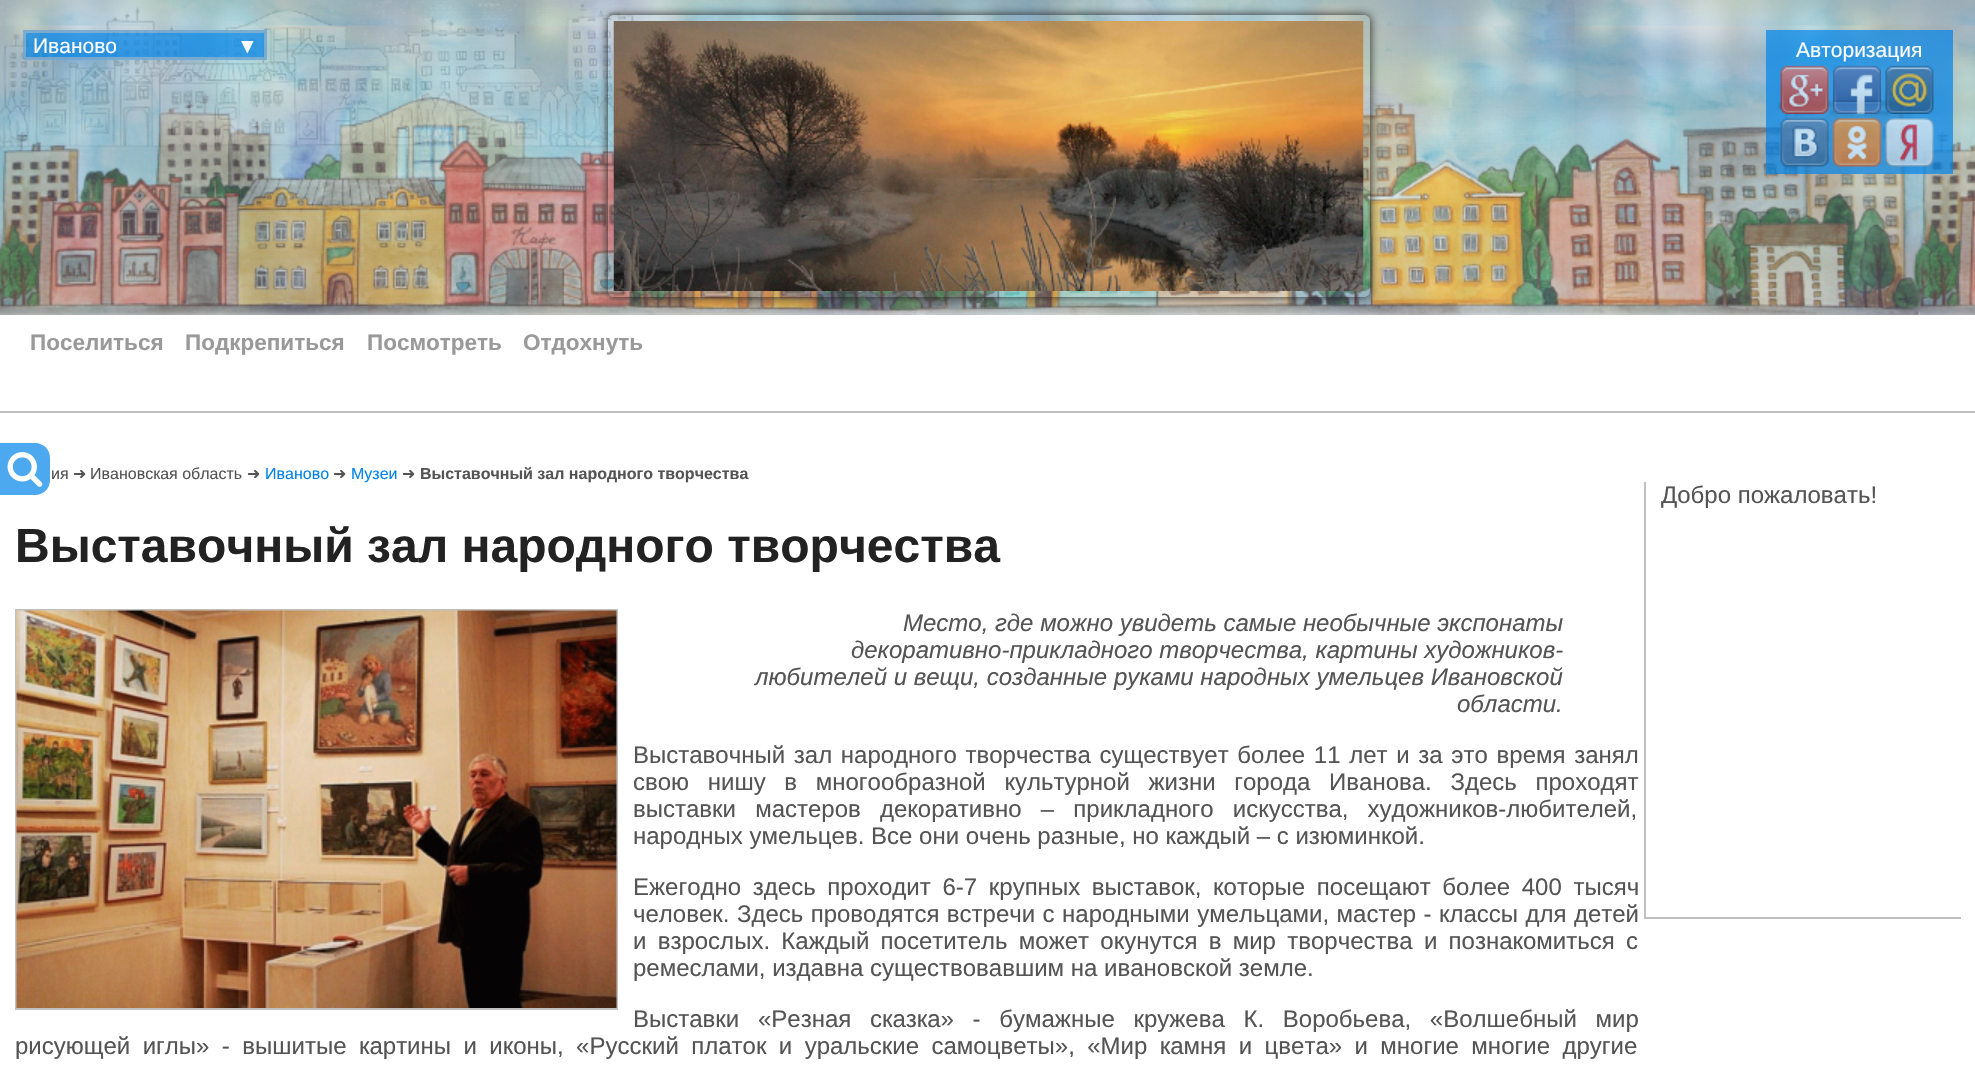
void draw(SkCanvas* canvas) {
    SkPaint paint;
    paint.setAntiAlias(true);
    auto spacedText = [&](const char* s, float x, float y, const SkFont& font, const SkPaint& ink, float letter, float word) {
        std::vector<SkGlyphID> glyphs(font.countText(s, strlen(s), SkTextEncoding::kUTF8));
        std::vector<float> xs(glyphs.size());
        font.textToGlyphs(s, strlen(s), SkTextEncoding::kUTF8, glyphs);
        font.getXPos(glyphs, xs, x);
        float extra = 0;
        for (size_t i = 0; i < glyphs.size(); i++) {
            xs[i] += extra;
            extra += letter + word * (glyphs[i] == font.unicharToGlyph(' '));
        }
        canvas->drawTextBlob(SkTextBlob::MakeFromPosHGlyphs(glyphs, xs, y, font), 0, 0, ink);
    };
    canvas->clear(0xFFFFFFFF);
    paint.setColor(0xFFC0C0C0);
    canvas->drawRect(SkRect::MakeXYWH(0, 0, 1975, 315), paint);
    canvas->drawImageRect(SkImages::DeferredFromEncodedData(SkData::MakeFromFileName("img1.png")), SkRect::MakeXYWH(0, 0, 1975, 315), SkSamplingOptions());
    canvas->drawImageRect(SkImages::DeferredFromEncodedData(SkData::MakeFromFileName("img2.png")), SkRect::MakeXYWH(0, 0, 638, 150), SkSamplingOptions());
    canvas->drawImageRect(SkImages::DeferredFromEncodedData(SkData::MakeFromFileName("img3.png")), SkRect::MakeXYWH(0, 0, 1975, 315), SkSamplingOptions());
    canvas->save();
    canvas->clipPath(SkPathBuilder(SkPathFillType::kEvenOdd).moveTo(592, 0).lineTo(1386, 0).lineTo(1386, 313).lineTo(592, 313).close().moveTo(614, 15).lineTo(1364, 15).cubicTo(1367.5f, 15, 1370, 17.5f, 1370, 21).lineTo(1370, 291).cubicTo(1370, 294.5f, 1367.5f, 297, 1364, 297).lineTo(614, 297).cubicTo(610.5f, 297, 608, 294.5f, 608, 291).lineTo(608, 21).cubicTo(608, 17.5f, 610.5f, 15, 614, 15).close().detach(), true);
    paint.setColor(0xFF222222);
    paint.setMaskFilter(SkMaskFilter::MakeBlur(kNormal_SkBlurStyle, 5));
    canvas->drawRoundRect(SkRect::MakeXYWH(608, 15, 762, 282), 6, 6, paint);
    paint.setMaskFilter(nullptr);
    canvas->restore();
    canvas->drawImageRect(SkImages::DeferredFromEncodedData(SkData::MakeFromFileName("img4.png")), SkRect::MakeXYWH(613, 21, 751, 270), SkSamplingOptions());
    paint.setColor(0xB30083E8);
    canvas->drawRect(SkRect::MakeXYWH(23, 30, 244, 30), paint);
    paint.setStyle(SkPaint::kStroke_Style);
    paint.setStrokeWidth(3);
    paint.setColor(0x80C0C0C0);
    canvas->drawRect(SkRect::MakeXYWH(24.5f, 31.5f, 241, 27), paint);
    SkFont font1(fontMgr->matchFamilyStyle("Liberation Sans", SkFontStyle::Normal()), 21);
    font1.setSubpixel(true);
    paint.setStyle(SkPaint::kFill_Style);
    paint.setColor(0xFFFFFFFF);
    canvas->drawString("Иваново", 33, 53, font1, paint);
    canvas->drawString("▼", 237, 53, font1, paint);
    paint.setColor(0xB30083E8);
    canvas->drawRect(SkRect::MakeXYWH(1766, 30, 187, 144), paint);
    paint.setColor(0xFFFFFFFF);
    canvas->drawString("Авторизация", 1796, 57, font1, paint);
    canvas->drawImageRect(SkImages::DeferredFromEncodedData(SkData::MakeFromFileName("img5.png")), SkRect::MakeXYWH(1780, 65, 49, 49), SkSamplingOptions());
    canvas->drawImageRect(SkImages::DeferredFromEncodedData(SkData::MakeFromFileName("img6.png")), SkRect::MakeXYWH(1833, 65, 48, 49), SkSamplingOptions());
    canvas->drawImageRect(SkImages::DeferredFromEncodedData(SkData::MakeFromFileName("img7.png")), SkRect::MakeXYWH(1885, 65, 49, 49), SkSamplingOptions());
    canvas->drawImageRect(SkImages::DeferredFromEncodedData(SkData::MakeFromFileName("img8.png")), SkRect::MakeXYWH(1780, 118, 49, 49), SkSamplingOptions());
    canvas->drawImageRect(SkImages::DeferredFromEncodedData(SkData::MakeFromFileName("img9.png")), SkRect::MakeXYWH(1833, 118, 48, 49), SkSamplingOptions());
    canvas->drawImageRect(SkImages::DeferredFromEncodedData(SkData::MakeFromFileName("img10.png")), SkRect::MakeXYWH(1885, 118, 49, 49), SkSamplingOptions());
    paint.setColor(0xB3FFFFFF);
    paint.setMaskFilter(SkMaskFilter::MakeBlur(kNormal_SkBlurStyle, 4));
    canvas->drawRect(SkRect::MakeXYWH(-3, 315, 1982, 104), paint);
    paint.setMaskFilter(nullptr);
    paint.setColor(0xFFC0C0C0);
    canvas->drawRect(SkRect::MakeXYWH(0, 411, 1975, 2), paint);
    SkFont font2(fontMgr->matchFamilyStyle("Liberation Sans", SkFontStyle::Bold()), 22.5f);
    font2.setSubpixel(true);
    paint.setColor(0xFF999999);
    canvas->drawString("Поселиться", 30, 350, font2, paint);
    canvas->drawString("Подкрепиться", 185, 350, font2, paint);
    canvas->drawString("Посмотреть", 367, 350, font2, paint);
    canvas->drawString("Отдохнуть", 523, 350, font2, paint);
    paint.setColor(0xB30083E8);
    canvas->drawPath(SkPathBuilder().moveTo(0, 443).lineTo(35, 443).cubicTo(43.5f, 443, 50, 449.5f, 50, 458).lineTo(50, 480).cubicTo(50, 488.5f, 43.5f, 495, 35, 495).lineTo(0, 495).close().detach(), paint);
    canvas->drawImageRect(SkImages::DeferredFromEncodedData(SkData::MakeFromFileName("img11.png")), SkRect::MakeXYWH(7, 452, 36, 35), SkSamplingOptions());
    SkFont font3(fontMgr->matchFamilyStyle("Liberation Sans", SkFontStyle::Normal()), 16);
    font3.setSubpixel(true);
    paint.setColor(0xFF545454);
    canvas->drawString("ия", 51, 479, font3, paint);
    SkFont font4(fontMgr->matchFamilyStyle("DejaVu Sans", SkFontStyle::Normal()), 16);
    font4.setSubpixel(true);
    canvas->drawString("➜", 73, 479, font4, paint);
    canvas->drawString("Ивановская область", 90, 479, font3, paint);
    canvas->drawString("➜", 247, 479, font4, paint);
    paint.setColor(0xFF0083E8);
    canvas->drawString("Иваново", 265, 479, font3, paint);
    paint.setColor(0xFF545454);
    canvas->drawString("➜", 333, 479, font4, paint);
    paint.setColor(0xFF0083E8);
    canvas->drawString("Музеи", 351, 479, font3, paint);
    paint.setColor(0xFF545454);
    canvas->drawString("➜", 402, 479, font4, paint);
    SkFont font5(fontMgr->matchFamilyStyle("Liberation Sans", SkFontStyle::Bold()), 16);
    font5.setSubpixel(true);
    canvas->drawString("Выставочный зал народного творчества", 420, 479, font5, paint);
    SkFont font6(fontMgr->matchFamilyStyle("Liberation Sans", SkFontStyle::Bold()), 48);
    font6.setSubpixel(true);
    paint.setColor(0xFF222222);
    canvas->drawString("Выставочный зал народного творчества", 15, 562, font6, paint);
    paint.setStyle(SkPaint::kStroke_Style);
    paint.setStrokeWidth(2);
    paint.setColor(0xFFC0C0C0);
    canvas->drawRect(SkRect::MakeXYWH(16, 610, 601, 399), paint);
    canvas->drawImageRect(SkImages::DeferredFromEncodedData(SkData::MakeFromFileName("img12.png")), SkRect::MakeXYWH(16, 610, 601, 398), SkSamplingOptions());
    SkFont font7(fontMgr->matchFamilyStyle("Liberation Sans", SkFontStyle::Italic()), 24);
    font7.setSubpixel(true);
    paint.setStyle(SkPaint::kFill_Style);
    paint.setColor(0xFF545454);
    canvas->drawString("Место, где можно увидеть самые необычные экспонаты", 903, 631, font7, paint);
    canvas->drawString("декоративно-прикладного творчества, картины художников-", 851, 658, font7, paint);
    canvas->drawString("любителей и вещи, созданные руками народных умельцев Ивановской", 755, 685, font7, paint);
    canvas->drawString("области.", 1457, 712, font7, paint);
    SkFont font8(fontMgr->matchFamilyStyle("Liberation Sans", SkFontStyle::Normal()), 24);
    font8.setSubpixel(true);
    spacedText("Выставочный зал народного творчества существует более 11 лет и за это время занял", 633, 763, font8, paint, 0, 2);
    spacedText("свою нишу в многообразной культурной жизни города Иванова. Здесь проходят", 633, 790, font8, paint, 0, 12);
    spacedText("выставки мастеров декоративно – прикладного искусства, художников-любителей,", 633, 817, font8, paint, 0, 12.5f);
    canvas->drawString("народных умельцев. Все они очень разные, но каждый – с изюминкой.", 633, 844, font8, paint);
    spacedText("Ежегодно здесь проходит 6-7 крупных выставок, которые посещают более 400 тысяч", 633, 895, font8, paint, 0, 5);
    spacedText("человек. Здесь проводятся встречи с народными умельцами, мастер - классы для детей", 633, 922, font8, paint, 0, 0.75f);
    spacedText("и взрослых. Каждый посетитель может окунутся в мир творчества и познакомиться с", 633, 949, font8, paint, 0, 4.6f);
    canvas->drawString("ремеслами, издавна существовавшим на ивановской земле.", 633, 976, font8, paint);
    spacedText("Выставки «Резная сказка» - бумажные кружева К. Воробьева, «Волшебный мир", 633, 1027, font8, paint, 0, 12);
    spacedText("рисующей иглы» - вышитые картины и иконы, «Русский платок и уральские самоцветы», «Мир камня и цвета» и многие многие другие", 15, 1054, font8, paint, 0, 5.75f);
    paint.setColor(0xFFC0C0C0);
    canvas->drawRect(SkRect::MakeXYWH(1644, 917, 317, 2), paint);
    canvas->drawRect(SkRect::MakeXYWH(1644, 482, 2, 436), paint);
    paint.setColor(0xFF545454);
    canvas->drawString("Добро пожаловать!", 1661, 503, font8, paint);
}
